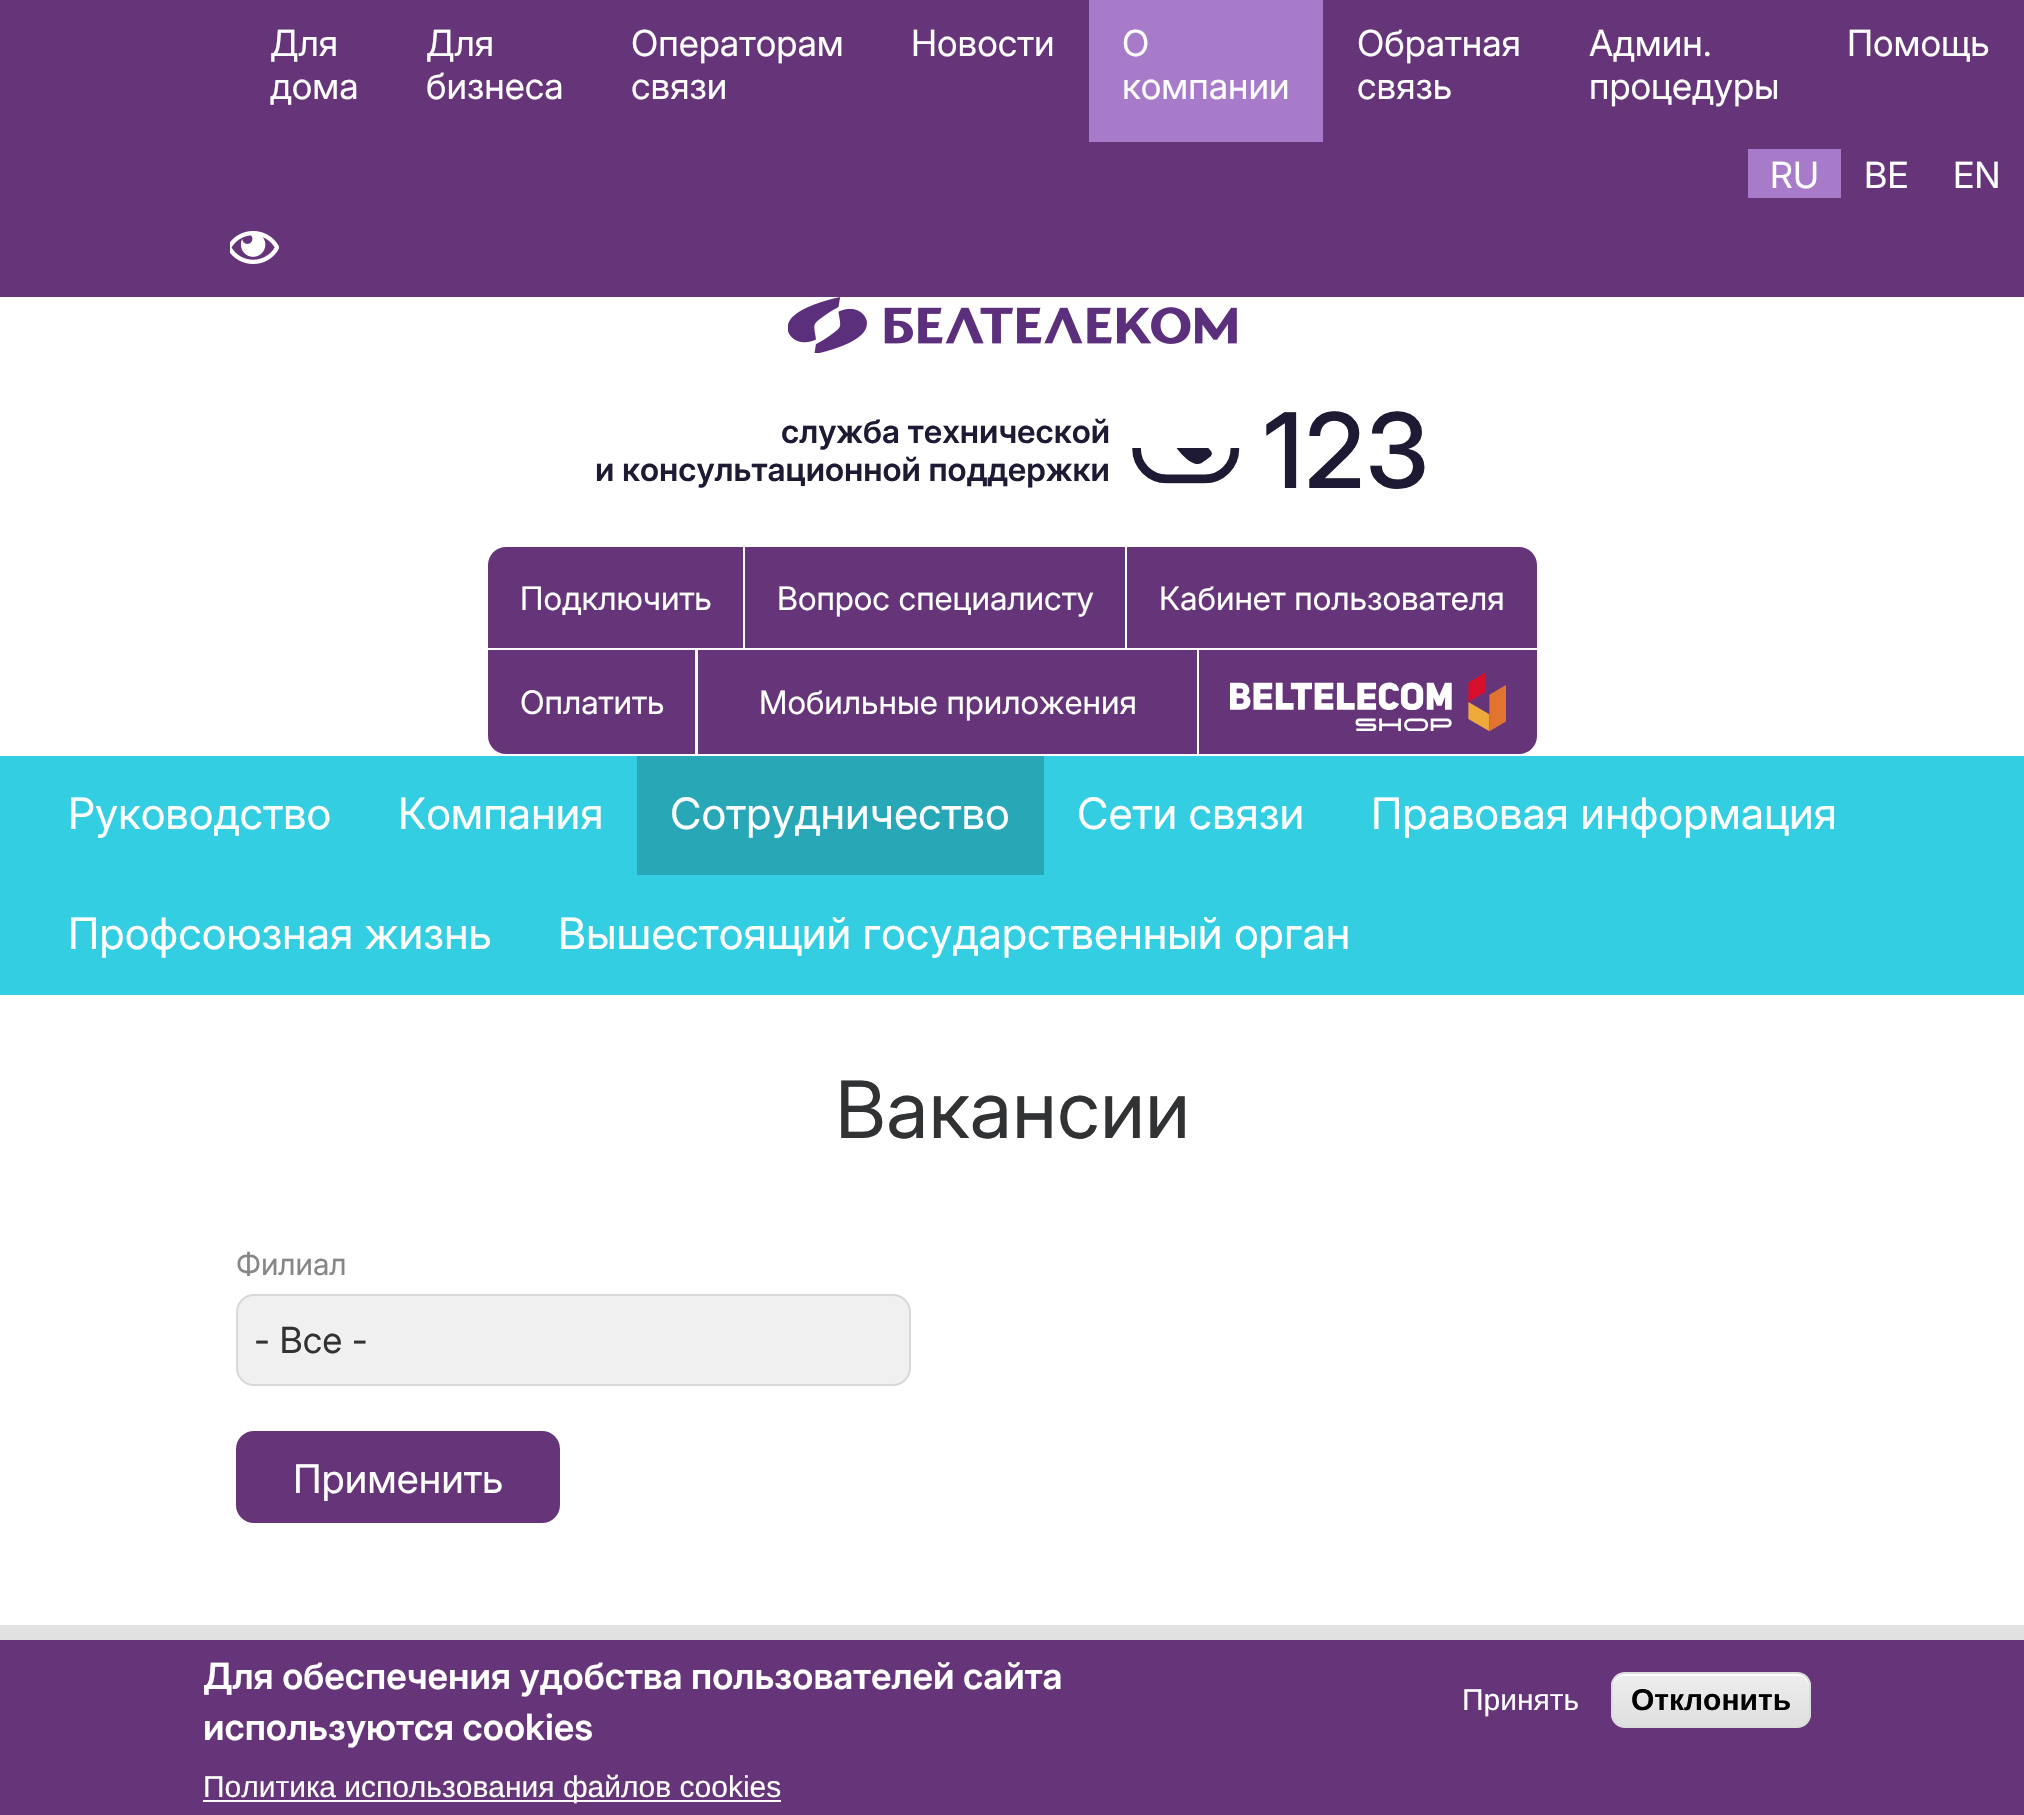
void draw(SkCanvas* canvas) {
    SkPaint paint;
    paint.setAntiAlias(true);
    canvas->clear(0xFFFFFFFF);
    paint.setColor(0xFF663479);
    canvas->drawRect(SkRect::MakeXYWH(0, 0, 2024, 297), paint);
    SkFont font1(fontMgr->matchFamilyStyle("Inter", SkFontStyle::Normal()), 36);
    font1.setSubpixel(true);
    paint.setColor(0xFFFFFFFF);
    canvas->drawString("Для", 270, 56, font1, paint);
    canvas->drawString("дома", 270, 99, font1, paint);
    canvas->drawString("Для", 426, 56, font1, paint);
    canvas->drawString("бизнеса", 426, 99, font1, paint);
    canvas->drawString("Операторам", 631, 56, font1, paint);
    canvas->drawString("связи", 631, 99, font1, paint);
    canvas->drawString("Новости", 911, 56, font1, paint);
    paint.setColor(0xFFA87BCA);
    canvas->drawRect(SkRect::MakeXYWH(1089, 0, 234, 142), paint);
    paint.setColor(0xFFFFFFFF);
    canvas->drawString("О", 1122, 56, font1, paint);
    canvas->drawString("компании", 1122, 99, font1, paint);
    canvas->drawString("Обратная", 1357, 56, font1, paint);
    canvas->drawString("связь", 1357, 99, font1, paint);
    canvas->drawString("Админ.", 1589, 56, font1, paint);
    canvas->drawString("процедуры", 1589, 99, font1, paint);
    canvas->drawString("Помощь", 1847, 56, font1, paint);
    paint.setColor(0xFFA87BCA);
    canvas->drawRect(SkRect::MakeXYWH(1748, 149, 93, 49), paint);
    paint.setColor(0xFFFFFFFF);
    canvas->drawString("RU", 1770, 188, font1, paint);
    canvas->drawString("BE", 1864, 188, font1, paint);
    canvas->drawString("EN", 1953, 188, font1, paint);
    canvas->drawImageRect(SkImages::DeferredFromEncodedData(SkData::MakeFromFileName("img1.png")), SkRect::MakeXYWH(230, 231, 49, 33), SkSamplingOptions());
    canvas->drawImageRect(SkImages::DeferredFromEncodedData(SkData::MakeFromFileName("img2.png")), SkRect::MakeXYWH(788, 297, 449, 56), SkSamplingOptions());
    SkFont font2(fontMgr->matchFamilyStyle("Inter", SkFontStyle(600, SkFontStyle::kNormal_Width, SkFontStyle::kUpright_Slant)), 32.4f);
    font2.setSubpixel(true);
    paint.setColor(0xFF1E1A34);
    canvas->drawString("служба технической", 781, 443, font2, paint);
    canvas->drawString("и консультационной поддержки", 595, 481, font2, paint);
    canvas->drawImageRect(SkImages::DeferredFromEncodedData(SkData::MakeFromFileName("img3.png")), SkRect::MakeXYWH(1132, 448, 108, 36), SkSamplingOptions());
    SkFont font3(fontMgr->matchFamilyStyle("Inter", SkFontStyle(500, SkFontStyle::kNormal_Width, SkFontStyle::kUpright_Slant)), 104);
    font3.setSubpixel(true);
    canvas->drawString("123", 1263, 488, font3, paint);
    paint.setColor(0xFF663479);
    canvas->drawPath(SkPathBuilder().moveTo(506, 547).lineTo(743, 547).lineTo(743, 648).lineTo(488, 648).lineTo(488, 565).cubicTo(488, 555, 496, 547, 506, 547).close().detach(), paint);
    SkFont font4(fontMgr->matchFamilyStyle("Inter", SkFontStyle::Normal()), 32.4f);
    font4.setSubpixel(true);
    paint.setColor(0xFFFFFFFF);
    canvas->drawString("Подключить", 520, 610, font4, paint);
    paint.setColor(0xFF663479);
    canvas->drawRect(SkRect::MakeXYWH(745, 547, 380, 101), paint);
    paint.setColor(0xFFFFFFFF);
    canvas->drawString("Вопрос специалисту", 777, 610, font4, paint);
    paint.setColor(0xFF663479);
    canvas->drawPath(SkPathBuilder().moveTo(1127, 547).lineTo(1519, 547).cubicTo(1529, 547, 1537, 555, 1537, 565).lineTo(1537, 648).lineTo(1127, 648).close().detach(), paint);
    paint.setColor(0xFFFFFFFF);
    canvas->drawString("Кабинет пользователя", 1159, 610, font4, paint);
    paint.setColor(0xFF663479);
    canvas->drawPath(SkPathBuilder().moveTo(488, 650).lineTo(695, 650).lineTo(695, 754).lineTo(506, 754).cubicTo(496, 754, 488, 746, 488, 736).close().detach(), paint);
    paint.setColor(0xFFFFFFFF);
    canvas->drawString("Оплатить", 520, 714, font4, paint);
    paint.setColor(0xFF663479);
    canvas->drawRect(SkRect::MakeXYWH(698, 650, 499, 104), paint);
    paint.setColor(0xFFFFFFFF);
    canvas->drawString("Мобильные приложения", 759, 714, font4, paint);
    paint.setColor(0xFF663479);
    canvas->drawPath(SkPathBuilder().moveTo(1199, 650).lineTo(1537, 650).lineTo(1537, 736).cubicTo(1537, 746, 1529, 754, 1519, 754).lineTo(1199, 754).close().detach(), paint);
    canvas->drawImageRect(SkImages::DeferredFromEncodedData(SkData::MakeFromFileName("img4.png")), SkRect::MakeXYWH(1230, 673, 276, 58), SkSamplingOptions());
    paint.setColor(0xFF33CEE1);
    canvas->drawRect(SkRect::MakeXYWH(0, 756, 2024, 239), paint);
    SkFont font5(fontMgr->matchFamilyStyle("Inter", SkFontStyle::Normal()), 43.25f);
    font5.setSubpixel(true);
    paint.setColor(0xFFFFFFFF);
    canvas->drawString("Руководство", 68, 829, font5, paint);
    canvas->drawString("Компания", 398, 829, font5, paint);
    paint.setColor(0xFF28A8B7);
    canvas->drawRect(SkRect::MakeXYWH(637, 756, 407, 119), paint);
    paint.setColor(0xFFFFFFFF);
    canvas->drawString("Сотрудничество", 670, 829, font5, paint);
    canvas->drawString("Сети связи", 1077, 829, font5, paint);
    canvas->drawString("Правовая информация", 1371, 829, font5, paint);
    canvas->drawString("Профсоюзная жизнь", 68, 949, font5, paint);
    canvas->drawString("Вышестоящий государственный орган", 558, 949, font5, paint);
    SkFont font6(fontMgr->matchFamilyStyle("Inter", SkFontStyle::Normal()), 79);
    font6.setSubpixel(true);
    paint.setColor(0xFF313234);
    canvas->drawString("Вакансии", 835, 1138, font6, paint);
    SkFont font7(fontMgr->matchFamilyStyle("Inter", SkFontStyle::Normal()), 30.5f);
    font7.setSubpixel(true);
    paint.setColor(0xFF878787);
    canvas->drawString("Филиал", 236, 1275, font7, paint);
    paint.setColor(0xFFF0F0F0);
    canvas->drawRoundRect(SkRect::MakeXYWH(237, 1295, 673, 90), 17, 17, paint);
    paint.setStyle(SkPaint::kStroke_Style);
    paint.setStrokeWidth(2);
    paint.setColor(0xFFD8D8D8);
    canvas->drawRoundRect(SkRect::MakeXYWH(237, 1295, 673, 90), 17, 17, paint);
    paint.setStyle(SkPaint::kFill_Style);
    paint.setColor(0xFF313234);
    canvas->drawString("- Все -", 254, 1353, font1, paint);
    paint.setColor(0xFF663479);
    canvas->drawRoundRect(SkRect::MakeXYWH(236, 1431, 324, 92), 18, 18, paint);
    SkFont font8(fontMgr->matchFamilyStyle("Inter", SkFontStyle::Normal()), 39.5f);
    font8.setSubpixel(true);
    paint.setColor(0xFFFFFFFF);
    canvas->drawString("Применить", 293, 1493, font8, paint);
    paint.setColor(0xFFE1E1E1);
    canvas->drawRect(SkRect::MakeXYWH(0, 1625, 2024, 15), paint);
    paint.setColor(0xFF663479);
    canvas->drawRect(SkRect::MakeXYWH(0, 1640, 2024, 175), paint);
    SkFont font9(fontMgr->matchFamilyStyle("Inter", SkFontStyle(600, SkFontStyle::kNormal_Width, SkFontStyle::kUpright_Slant)), 36);
    font9.setSubpixel(true);
    paint.setColor(0xFFFFFFFF);
    canvas->drawString("Для обеспечения удобства пользователей сайта", 203, 1689, font9, paint);
    canvas->drawString("используются cookies", 203, 1740, font9, paint);
    canvas->drawRect(SkRect::MakeXYWH(203, 1800, 578, 2), paint);
    SkFont font10(fontMgr->matchFamilyStyle("Liberation Sans", SkFontStyle::Normal()), 30);
    font10.setSubpixel(true);
    canvas->drawString("Политика использования файлов cookies", 203, 1797, font10, paint);
    canvas->drawString("Принять", 1462, 1710, font10, paint);
    canvas->save();
    canvas->clipPath(SkPathBuilder().moveTo(1625, 1672).lineTo(1797, 1672).cubicTo(1804.5f, 1672, 1811, 1678.5f, 1811, 1686).lineTo(1811, 1714).cubicTo(1811, 1721.5f, 1804.5f, 1728, 1797, 1728).lineTo(1625, 1728).cubicTo(1617.5f, 1728, 1611, 1721.5f, 1611, 1714).lineTo(1611, 1686).cubicTo(1611, 1678.5f, 1617.5f, 1672, 1625, 1672).close().detach(), true);
    {
        const SkColor colors[] = {0xFFEDEDED, 0xFFDFDFDF};
        const float stops[] = {0.05f, 1};
        const SkPoint ends[] = {{1711, 1674}, {1711, 1726}};
        paint.setShader(SkGradientShader::MakeLinear(ends, colors, stops, 2, SkTileMode::kClamp));
        paint.setAlpha(255);
    }
    canvas->drawRect(SkRect::MakeXYWH(1611, 1674, 200, 52), paint);
    canvas->restore();
    paint.setShader(nullptr);
    paint.setColor(0xFFFFFFFF);
    canvas->drawPath(SkPathBuilder().moveTo(1624, 1676).lineTo(1798, 1676).cubicTo(1804, 1676, 1809, 1681, 1809, 1688).lineTo(1809, 1685).cubicTo(1809, 1679, 1804, 1674, 1798, 1674).lineTo(1624, 1674).cubicTo(1618, 1674, 1613, 1679, 1613, 1685).lineTo(1613, 1688).cubicTo(1613, 1681, 1618, 1676, 1624, 1676).close().detach(), paint);
    paint.setStyle(SkPaint::kStroke_Style);
    paint.setColor(0xFFDCDCDC);
    canvas->drawRoundRect(SkRect::MakeXYWH(1612, 1673, 198, 54), 13, 13, paint);
    SkFont font11(fontMgr->matchFamilyStyle("Liberation Sans", SkFontStyle::Bold()), 30);
    font11.setSubpixel(true);
    paint.setStyle(SkPaint::kFill_Style);
    paint.setColor(0xFF000000);
    canvas->drawString("Отклонить", 1631, 1710, font11, paint);
}
